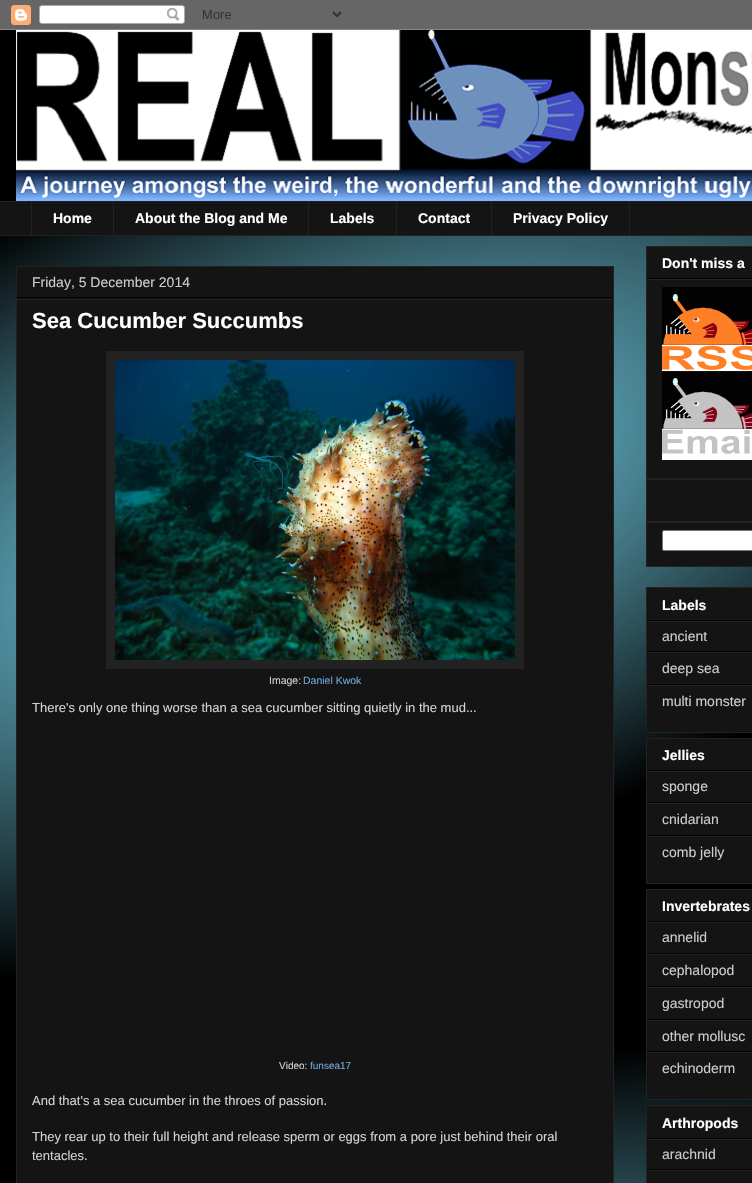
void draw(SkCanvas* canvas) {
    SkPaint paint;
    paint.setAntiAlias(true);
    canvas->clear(0xFF000000);
    canvas->drawImageRect(SkImages::DeferredFromEncodedData(SkData::MakeFromFileName("img1.png")), SkRect::MakeXYWH(0, 53, 752, 1130), SkSamplingOptions());
    canvas->drawImageRect(SkImages::DeferredFromEncodedData(SkData::MakeFromFileName("img2.png")), SkRect::MakeXYWH(0, 0, 752, 30), SkSamplingOptions());
    canvas->drawImageRect(SkImages::DeferredFromEncodedData(SkData::MakeFromFileName("img3.png")), SkRect::MakeXYWH(16, 30, 736, 171), SkSamplingOptions());
    paint.setColor(0xFF141414);
    canvas->drawRect(SkRect::MakeXYWH(0, 202, 752, 33), paint);
    paint.setColor(0xFF222222);
    canvas->drawRect(SkRect::MakeXYWH(0, 201, 752, 1), paint);
    canvas->drawRect(SkRect::MakeXYWH(31, 201, 1, 35), paint);
    SkFont font1(fontMgr->matchFamilyStyle("Liberation Sans", SkFontStyle::Bold()), 14);
    font1.setSubpixel(true);
    paint.setColor(0xFFFFFFFF);
    canvas->drawString("Home", 53, 223, font1, paint);
    paint.setColor(0xFF222222);
    canvas->drawRect(SkRect::MakeXYWH(113, 201, 1, 35), paint);
    paint.setColor(0xFFFFFFFF);
    canvas->drawString("About the Blog and Me", 135, 223, font1, paint);
    paint.setColor(0xFF222222);
    canvas->drawRect(SkRect::MakeXYWH(308, 201, 1, 35), paint);
    paint.setColor(0xFFFFFFFF);
    canvas->drawString("Labels", 330, 223, font1, paint);
    paint.setColor(0xFF222222);
    canvas->drawRect(SkRect::MakeXYWH(396, 201, 1, 35), paint);
    paint.setColor(0xFFFFFFFF);
    canvas->drawString("Contact", 418, 223, font1, paint);
    paint.setStyle(SkPaint::kStroke_Style);
    paint.setStrokeWidth(1);
    paint.setColor(0xFF222222);
    canvas->drawRect(SkRect::MakeXYWH(491.5f, 201.5f, 138, 34), paint);
    paint.setStyle(SkPaint::kFill_Style);
    paint.setColor(0xFFFFFFFF);
    canvas->drawString("Privacy Policy", 513, 223, font1, paint);
    paint.setColor(0xFF222222);
    canvas->drawRect(SkRect::MakeXYWH(0, 235, 752, 1), paint);
    paint.setColor(0xFF141414);
    canvas->drawRect(SkRect::MakeXYWH(16.5f, 266.5f, 597, 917), paint);
    paint.setStyle(SkPaint::kStroke_Style);
    paint.setColor(0xFF222222);
    canvas->drawRect(SkRect::MakeXYWH(16.5f, 266.5f, 597, 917), paint);
    paint.setStyle(SkPaint::kFill_Style);
    paint.setColor(0xFF000000);
    canvas->drawRect(SkRect::MakeXYWH(17, 297, 596, 1), paint);
    SkFont font2(fontMgr->matchFamilyStyle("Liberation Sans", SkFontStyle::Normal()), 14);
    font2.setSubpixel(true);
    paint.setColor(0xFFCCCCCC);
    canvas->drawString("Friday, 5 December 2014", 32, 287, font2, paint);
    paint.setColor(0xFF222222);
    canvas->drawRect(SkRect::MakeXYWH(17, 299, 596, 1), paint);
    SkFont font3(fontMgr->matchFamilyStyle("Liberation Sans", SkFontStyle::Bold()), 22);
    font3.setSubpixel(true);
    paint.setColor(0xFFFFFFFF);
    canvas->drawString("Sea Cucumber Succumbs", 32, 328, font3, paint);
    paint.setColor(0xFF222222);
    canvas->drawRect(SkRect::MakeXYWH(106, 351, 418, 318), paint);
    canvas->drawImageRect(SkImages::DeferredFromEncodedData(SkData::MakeFromFileName("img4.png")), SkRect::MakeXYWH(115, 360, 400, 300), SkSamplingOptions());
    SkFont font4(fontMgr->matchFamilyStyle("Liberation Sans", SkFontStyle::Normal()), 10.5f);
    font4.setSubpixel(true);
    paint.setColor(0xFFD2D2D2);
    canvas->drawString("Image:", 269, 684, font4, paint);
    paint.setColor(0xFF6FA8DC);
    canvas->drawString("Daniel Kwok", 303, 684, font4, paint);
    SkFont font5(fontMgr->matchFamilyStyle("Liberation Sans", SkFontStyle::Normal()), 13);
    font5.setSubpixel(true);
    paint.setColor(0xFFD2D2D2);
    canvas->drawString("There's only one thing worse than a sea cucumber sitting quietly in the mud...", 32, 712, font5, paint);
    SkFont font6(fontMgr->matchFamilyStyle("Liberation Sans", SkFontStyle::Normal()), 10);
    font6.setSubpixel(true);
    canvas->drawString("Video:", 279, 1069, font6, paint);
    paint.setColor(0xFF6FA8DC);
    canvas->drawString("funsea17", 310, 1069, font6, paint);
    paint.setColor(0xFFD2D2D2);
    canvas->drawString("And that's a sea cucumber in the throes of passion.", 32, 1105, font5, paint);
    canvas->drawString("They rear up to their full height and release sperm or eggs from a pore just behind their oral", 32, 1141, font5, paint);
    canvas->drawString("tentacles.", 32, 1160, font5, paint);
    paint.setColor(0xFF141414);
    canvas->drawRect(SkRect::MakeXYWH(646.5f, 246.5f, 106, 232), paint);
    paint.setStyle(SkPaint::kStroke_Style);
    paint.setColor(0xFF222222);
    canvas->drawRect(SkRect::MakeXYWH(646.5f, 246.5f, 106, 232), paint);
    paint.setStyle(SkPaint::kFill_Style);
    paint.setColor(0xFF000000);
    canvas->drawRect(SkRect::MakeXYWH(647, 278, 105, 1), paint);
    paint.setColor(0xFFFFFFFF);
    canvas->drawString("Don't miss a", 662, 268, font1, paint);
    paint.setColor(0xFF222222);
    canvas->drawRect(SkRect::MakeXYWH(647, 279, 105, 1), paint);
    canvas->drawImageRect(SkImages::DeferredFromEncodedData(SkData::MakeFromFileName("img5.png")), SkRect::MakeXYWH(662, 287, 90, 173), SkSamplingOptions());
    paint.setColor(0xFF141414);
    canvas->drawRect(SkRect::MakeXYWH(646.5f, 479.5f, 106, 42), paint);
    paint.setStyle(SkPaint::kStroke_Style);
    paint.setColor(0xFF222222);
    canvas->drawRect(SkRect::MakeXYWH(646.5f, 479.5f, 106, 42), paint);
    paint.setStyle(SkPaint::kFill_Style);
    paint.setColor(0xFF141414);
    canvas->drawRect(SkRect::MakeXYWH(646.5f, 522.5f, 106, 44), paint);
    paint.setStyle(SkPaint::kStroke_Style);
    paint.setColor(0xFF222222);
    canvas->drawRect(SkRect::MakeXYWH(646.5f, 522.5f, 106, 44), paint);
    paint.setStyle(SkPaint::kFill_Style);
    paint.setColor(0xFFFFFFFF);
    canvas->drawRoundRect(SkRect::MakeXYWH(662.5f, 530.5f, 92, 20), 1.5f, 1.5f, paint);
    paint.setStyle(SkPaint::kStroke_Style);
    paint.setColor(0xFF767676);
    canvas->drawRoundRect(SkRect::MakeXYWH(662.5f, 530.5f, 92, 20), 1.5f, 1.5f, paint);
    paint.setStyle(SkPaint::kFill_Style);
    paint.setColor(0xFF141414);
    canvas->drawRect(SkRect::MakeXYWH(646.5f, 587.5f, 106, 145), paint);
    paint.setStyle(SkPaint::kStroke_Style);
    paint.setColor(0xFF222222);
    canvas->drawRect(SkRect::MakeXYWH(646.5f, 587.5f, 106, 145), paint);
    paint.setStyle(SkPaint::kFill_Style);
    paint.setColor(0xFF000000);
    canvas->drawRect(SkRect::MakeXYWH(647, 620, 105, 1), paint);
    paint.setColor(0xFFFFFFFF);
    canvas->drawString("Labels", 662, 610, font1, paint);
    paint.setColor(0xFF222222);
    canvas->drawRect(SkRect::MakeXYWH(647, 621, 105, 1), paint);
    paint.setColor(0xFF000000);
    canvas->drawRect(SkRect::MakeXYWH(647, 651, 105, 1), paint);
    paint.setColor(0xFFCCCCCC);
    canvas->drawString("ancient", 662, 641, font2, paint);
    paint.setColor(0xFF222222);
    canvas->drawRect(SkRect::MakeXYWH(647, 652, 105, 1), paint);
    paint.setColor(0xFF000000);
    canvas->drawRect(SkRect::MakeXYWH(647, 684, 105, 1), paint);
    paint.setColor(0xFFCCCCCC);
    canvas->drawString("deep sea", 662, 673, font2, paint);
    paint.setColor(0xFF222222);
    canvas->drawRect(SkRect::MakeXYWH(647, 685, 105, 1), paint);
    paint.setColor(0xFFCCCCCC);
    canvas->drawString("multi monster", 662, 706, font2, paint);
    paint.setColor(0xFF141414);
    canvas->drawRect(SkRect::MakeXYWH(646.5f, 738.5f, 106, 145), paint);
    paint.setStyle(SkPaint::kStroke_Style);
    paint.setColor(0xFF222222);
    canvas->drawRect(SkRect::MakeXYWH(646.5f, 738.5f, 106, 145), paint);
    paint.setStyle(SkPaint::kFill_Style);
    paint.setColor(0xFF000000);
    canvas->drawRect(SkRect::MakeXYWH(647, 770, 105, 1), paint);
    paint.setColor(0xFFFFFFFF);
    canvas->drawString("Jellies", 662, 760, font1, paint);
    paint.setColor(0xFF222222);
    canvas->drawRect(SkRect::MakeXYWH(647, 771, 105, 1), paint);
    paint.setColor(0xFF000000);
    canvas->drawRect(SkRect::MakeXYWH(647, 802, 105, 1), paint);
    paint.setColor(0xFFCCCCCC);
    canvas->drawString("sponge", 662, 791, font2, paint);
    paint.setColor(0xFF222222);
    canvas->drawRect(SkRect::MakeXYWH(647, 803, 105, 1), paint);
    paint.setColor(0xFF000000);
    canvas->drawRect(SkRect::MakeXYWH(647, 835, 105, 1), paint);
    paint.setColor(0xFFCCCCCC);
    canvas->drawString("cnidarian", 662, 824, font2, paint);
    paint.setColor(0xFF222222);
    canvas->drawRect(SkRect::MakeXYWH(647, 836, 105, 1), paint);
    paint.setColor(0xFFCCCCCC);
    canvas->drawString("comb jelly", 662, 857, font2, paint);
    paint.setColor(0xFF141414);
    canvas->drawRect(SkRect::MakeXYWH(646.5f, 889.5f, 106, 210), paint);
    paint.setStyle(SkPaint::kStroke_Style);
    paint.setColor(0xFF222222);
    canvas->drawRect(SkRect::MakeXYWH(646.5f, 889.5f, 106, 210), paint);
    paint.setStyle(SkPaint::kFill_Style);
    paint.setColor(0xFF000000);
    canvas->drawRect(SkRect::MakeXYWH(647, 921, 105, 1), paint);
    paint.setColor(0xFFFFFFFF);
    canvas->drawString("Invertebrates", 662, 911, font1, paint);
    paint.setColor(0xFF222222);
    canvas->drawRect(SkRect::MakeXYWH(647, 922, 105, 1), paint);
    paint.setColor(0xFF000000);
    canvas->drawRect(SkRect::MakeXYWH(647, 953, 105, 1), paint);
    paint.setColor(0xFFCCCCCC);
    canvas->drawString("annelid", 662, 942, font2, paint);
    paint.setColor(0xFF222222);
    canvas->drawRect(SkRect::MakeXYWH(647, 954, 105, 1), paint);
    paint.setColor(0xFF000000);
    canvas->drawRect(SkRect::MakeXYWH(647, 986, 105, 1), paint);
    paint.setColor(0xFFCCCCCC);
    canvas->drawString("cephalopod", 662, 975, font2, paint);
    paint.setColor(0xFF222222);
    canvas->drawRect(SkRect::MakeXYWH(647, 987, 105, 1), paint);
    paint.setColor(0xFF000000);
    canvas->drawRect(SkRect::MakeXYWH(647, 1019, 105, 1), paint);
    paint.setColor(0xFFCCCCCC);
    canvas->drawString("gastropod", 662, 1008, font2, paint);
    paint.setColor(0xFF222222);
    canvas->drawRect(SkRect::MakeXYWH(647, 1020, 105, 1), paint);
    paint.setColor(0xFF000000);
    canvas->drawRect(SkRect::MakeXYWH(647, 1051, 105, 1), paint);
    paint.setColor(0xFFCCCCCC);
    canvas->drawString("other mollusc", 662, 1041, font2, paint);
    paint.setColor(0xFF222222);
    canvas->drawRect(SkRect::MakeXYWH(647, 1052, 105, 1), paint);
    paint.setColor(0xFFCCCCCC);
    canvas->drawString("echinoderm", 662, 1073, font2, paint);
    paint.setColor(0xFF141414);
    canvas->drawRect(SkRect::MakeXYWH(646.5f, 1105.5f, 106, 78), paint);
    paint.setStyle(SkPaint::kStroke_Style);
    paint.setColor(0xFF222222);
    canvas->drawRect(SkRect::MakeXYWH(646.5f, 1105.5f, 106, 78), paint);
    paint.setStyle(SkPaint::kFill_Style);
    paint.setColor(0xFF000000);
    canvas->drawRect(SkRect::MakeXYWH(647, 1138, 105, 1), paint);
    paint.setColor(0xFFFFFFFF);
    canvas->drawString("Arthropods", 662, 1128, font1, paint);
    paint.setColor(0xFF222222);
    canvas->drawRect(SkRect::MakeXYWH(647, 1139, 105, 1), paint);
    paint.setColor(0xFF000000);
    canvas->drawRect(SkRect::MakeXYWH(647, 1169, 105, 1), paint);
    paint.setColor(0xFFCCCCCC);
    canvas->drawString("arachnid", 662, 1159, font2, paint);
    paint.setColor(0xFF222222);
    canvas->drawRect(SkRect::MakeXYWH(647, 1170, 105, 1), paint);
}
